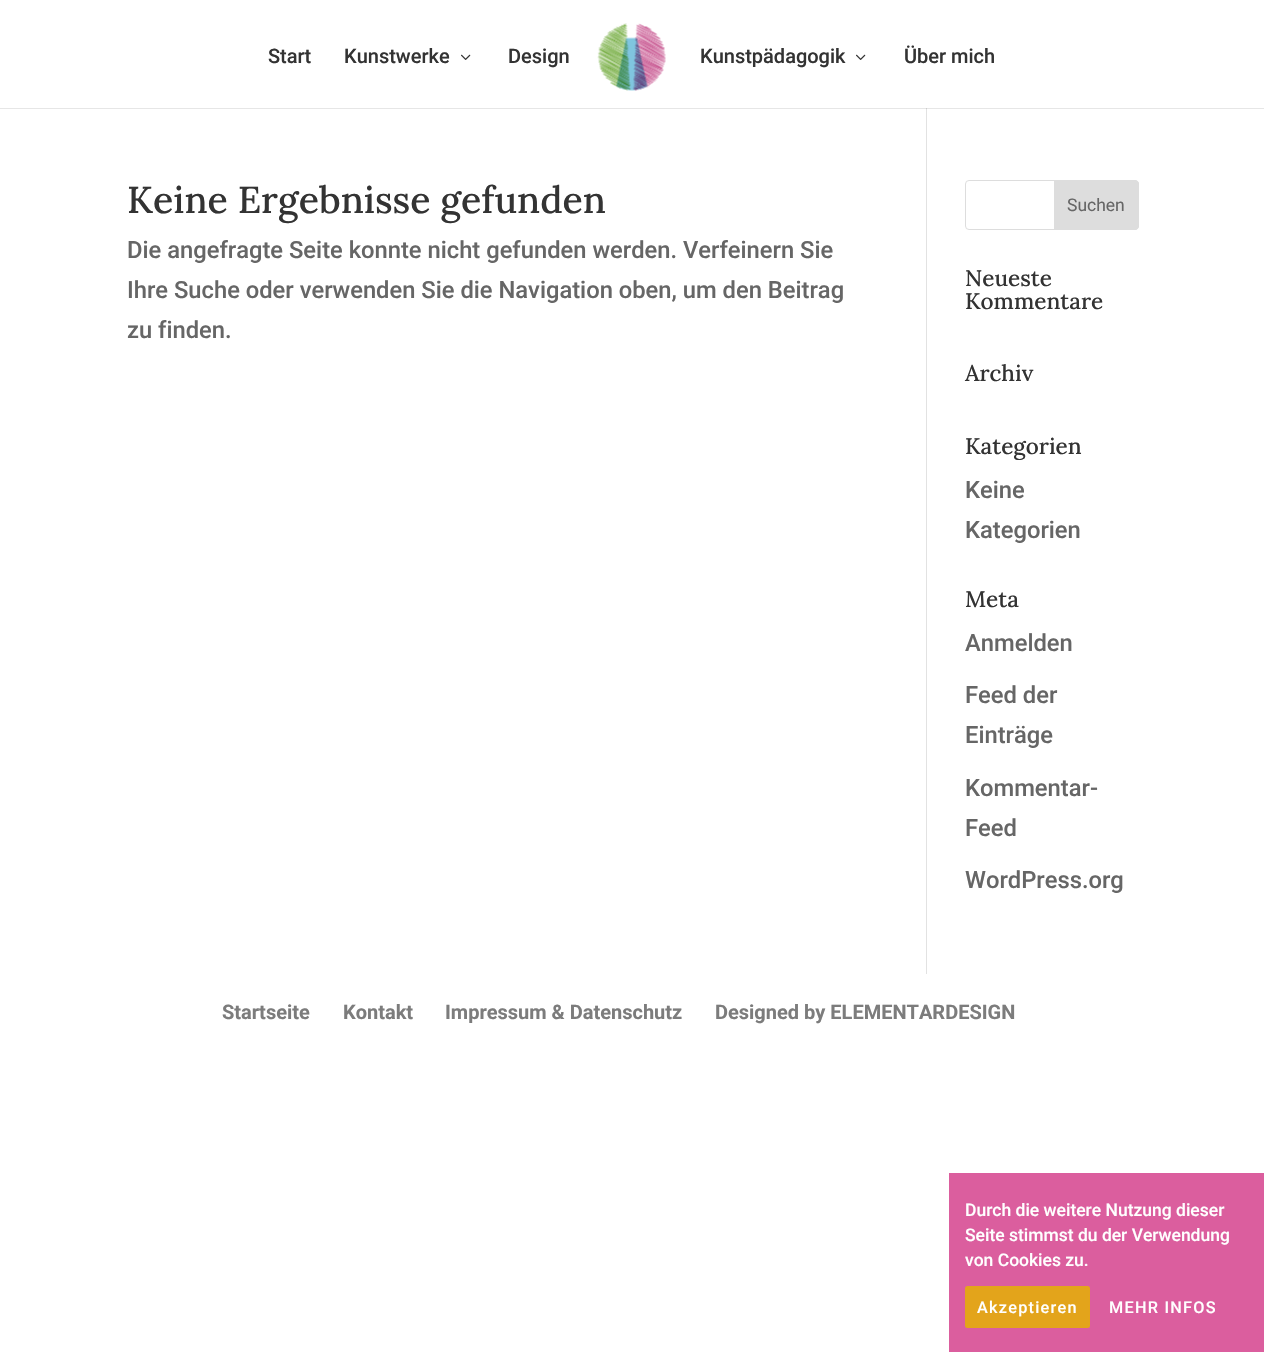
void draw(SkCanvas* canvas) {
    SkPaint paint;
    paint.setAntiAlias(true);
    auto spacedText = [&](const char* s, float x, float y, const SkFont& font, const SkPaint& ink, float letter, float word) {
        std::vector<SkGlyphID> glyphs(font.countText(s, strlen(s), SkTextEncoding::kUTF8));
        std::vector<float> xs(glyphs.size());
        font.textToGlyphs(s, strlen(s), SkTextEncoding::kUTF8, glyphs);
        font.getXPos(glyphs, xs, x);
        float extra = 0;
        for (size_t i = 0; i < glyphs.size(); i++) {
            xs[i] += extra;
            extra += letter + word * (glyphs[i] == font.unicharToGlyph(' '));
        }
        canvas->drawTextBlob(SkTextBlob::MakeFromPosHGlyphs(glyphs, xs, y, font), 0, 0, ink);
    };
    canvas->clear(0xFFFFFFFF);
    paint.setColor(0xFFE6E6E6);
    canvas->drawRect(SkRect::MakeXYWH(0, 108, 1264, 1), paint);
    SkFont font1(fontMgr->matchFamilyStyle("Roboto", SkFontStyle(500, SkFontStyle::kNormal_Width, SkFontStyle::kUpright_Slant)), 20);
    font1.setSubpixel(true);
    paint.setColor(0xFF333333);
    canvas->drawString("Start", 268, 63, font1, paint);
    canvas->drawString("Kunstwerke", 344, 63, font1, paint);
    canvas->drawImageRect(SkImages::DeferredFromEncodedData(SkData::MakeFromFileName("img1.png")), SkRect::MakeXYWH(461, 54, 10, 6), SkSamplingOptions());
    canvas->drawString("Design", 508, 63, font1, paint);
    canvas->drawImageRect(SkImages::DeferredFromEncodedData(SkData::MakeFromFileName("img2.png")), SkRect::MakeXYWH(597, 23, 69, 68), SkSamplingOptions());
    canvas->drawString("Kunstpädagogik", 700, 63, font1, paint);
    canvas->drawImageRect(SkImages::DeferredFromEncodedData(SkData::MakeFromFileName("img1.png")), SkRect::MakeXYWH(856, 54, 10, 6), SkSamplingOptions());
    canvas->drawString("Über mich", 904, 63, font1, paint);
    paint.setColor(0xFFE2E2E2);
    canvas->drawRect(SkRect::MakeXYWH(926, 108, 1, 866), paint);
    paint.setColor(0xFFCBCBCB);
    canvas->drawRect(SkRect::MakeXYWH(926, 108, 1, 1), paint);
    SkFont font2(fontMgr->matchFamilyStyle("Lora", SkFontStyle(500, SkFontStyle::kNormal_Width, SkFontStyle::kUpright_Slant)), 37.5f);
    font2.setSubpixel(true);
    paint.setColor(0xFF333333);
    canvas->drawString("Keine Ergebnisse gefunden", 127, 213, font2, paint);
    SkFont font3(fontMgr->matchFamilyStyle("Roboto", SkFontStyle(500, SkFontStyle::kNormal_Width, SkFontStyle::kUpright_Slant)), 23.75f);
    font3.setSubpixel(true);
    paint.setColor(0xFF666666);
    canvas->drawString("Die angefragte Seite konnte nicht gefunden werden. Verfeinern Sie", 127, 258, font3, paint);
    canvas->drawString("Ihre Suche oder verwenden Sie die Navigation oben, um den Beitrag", 127, 298, font3, paint);
    canvas->drawString("zu finden.", 127, 338, font3, paint);
    paint.setStyle(SkPaint::kStroke_Style);
    paint.setStrokeWidth(1);
    paint.setColor(0xFFDDDDDD);
    canvas->drawRoundRect(SkRect::MakeXYWH(965.5f, 180.5f, 173, 49), 3.5f, 3.5f, paint);
    paint.setStyle(SkPaint::kFill_Style);
    canvas->drawPath(SkPathBuilder().moveTo(1054.5f, 180.5f).lineTo(1135, 180.5f).cubicTo(1137, 180.5f, 1138.5f, 182, 1138.5f, 184).lineTo(1138.5f, 226).cubicTo(1138.5f, 228, 1137, 229.5f, 1135, 229.5f).lineTo(1054.5f, 229.5f).close().detach(), paint);
    paint.setStyle(SkPaint::kStroke_Style);
    canvas->drawPath(SkPathBuilder().moveTo(1054.5f, 180.5f).lineTo(1135, 180.5f).cubicTo(1137, 180.5f, 1138.5f, 182, 1138.5f, 184).lineTo(1138.5f, 226).cubicTo(1138.5f, 228, 1137, 229.5f, 1135, 229.5f).lineTo(1054.5f, 229.5f).close().detach(), paint);
    SkFont font4(fontMgr->matchFamilyStyle("Roboto", SkFontStyle::Normal()), 17.5f);
    font4.setSubpixel(true);
    paint.setStyle(SkPaint::kFill_Style);
    paint.setColor(0xFF666666);
    canvas->drawString("Suchen", 1067, 211, font4, paint);
    SkFont font5(fontMgr->matchFamilyStyle("Lora", SkFontStyle(500, SkFontStyle::kNormal_Width, SkFontStyle::kUpright_Slant)), 22.5f);
    font5.setSubpixel(true);
    paint.setColor(0xFF333333);
    canvas->drawString("Neueste", 965, 286, font5, paint);
    canvas->drawString("Kommentare", 965, 309, font5, paint);
    canvas->drawString("Archiv", 965, 381, font5, paint);
    canvas->drawString("Kategorien", 965, 454, font5, paint);
    paint.setColor(0xFF666666);
    canvas->drawString("Keine", 965, 498, font3, paint);
    canvas->drawString("Kategorien", 965, 538, font3, paint);
    paint.setColor(0xFF333333);
    canvas->drawString("Meta", 965, 607, font5, paint);
    paint.setColor(0xFF666666);
    canvas->drawString("Anmelden", 965, 651, font3, paint);
    canvas->drawString("Feed der", 965, 703, font3, paint);
    canvas->drawString("Einträge", 965, 743, font3, paint);
    canvas->drawString("Kommentar-", 965, 796, font3, paint);
    canvas->drawString("Feed", 965, 836, font3, paint);
    canvas->drawString("WordPress.org", 965, 888, font3, paint);
    SkFont font6(fontMgr->matchFamilyStyle("Roboto", SkFontStyle::Bold()), 20);
    font6.setSubpixel(true);
    paint.setColor(0xFF7C7C7C);
    canvas->drawString("Startseite", 222, 1019, font6, paint);
    canvas->drawString("Kontakt", 343, 1019, font6, paint);
    canvas->drawString("Impressum & Datenschutz", 445, 1019, font6, paint);
    canvas->drawString("Designed by ELEMENTARDESIGN", 715, 1019, font6, paint);
    paint.setColor(0xFFDB5E9E);
    canvas->drawRect(SkRect::MakeXYWH(949, 1173, 315, 179), paint);
    SkFont font7(fontMgr->matchFamilyStyle("Roboto", SkFontStyle(500, SkFontStyle::kNormal_Width, SkFontStyle::kUpright_Slant)), 17.5f);
    font7.setSubpixel(true);
    paint.setColor(0xFFFFFFFF);
    canvas->drawString("Durch die weitere Nutzung dieser", 965, 1216, font7, paint);
    canvas->drawString("Seite stimmst du der Verwendung", 965, 1241, font7, paint);
    canvas->drawString("von Cookies zu.", 965, 1266, font7, paint);
    paint.setColor(0xFFE3A41B);
    canvas->drawRoundRect(SkRect::MakeXYWH(965, 1286, 125, 42), 2.5f, 2.5f, paint);
    SkFont font8(fontMgr->matchFamilyStyle("Roboto", SkFontStyle(500, SkFontStyle::kNormal_Width, SkFontStyle::kUpright_Slant)), 16.25f);
    font8.setSubpixel(true);
    paint.setColor(0xFFFFFFFF);
    spacedText("Akzeptieren", 977, 1313, font8, paint, 1.25f, 0);
    spacedText("MEHR INFOS", 1109, 1313, font8, paint, 1.25f, 0);
}
